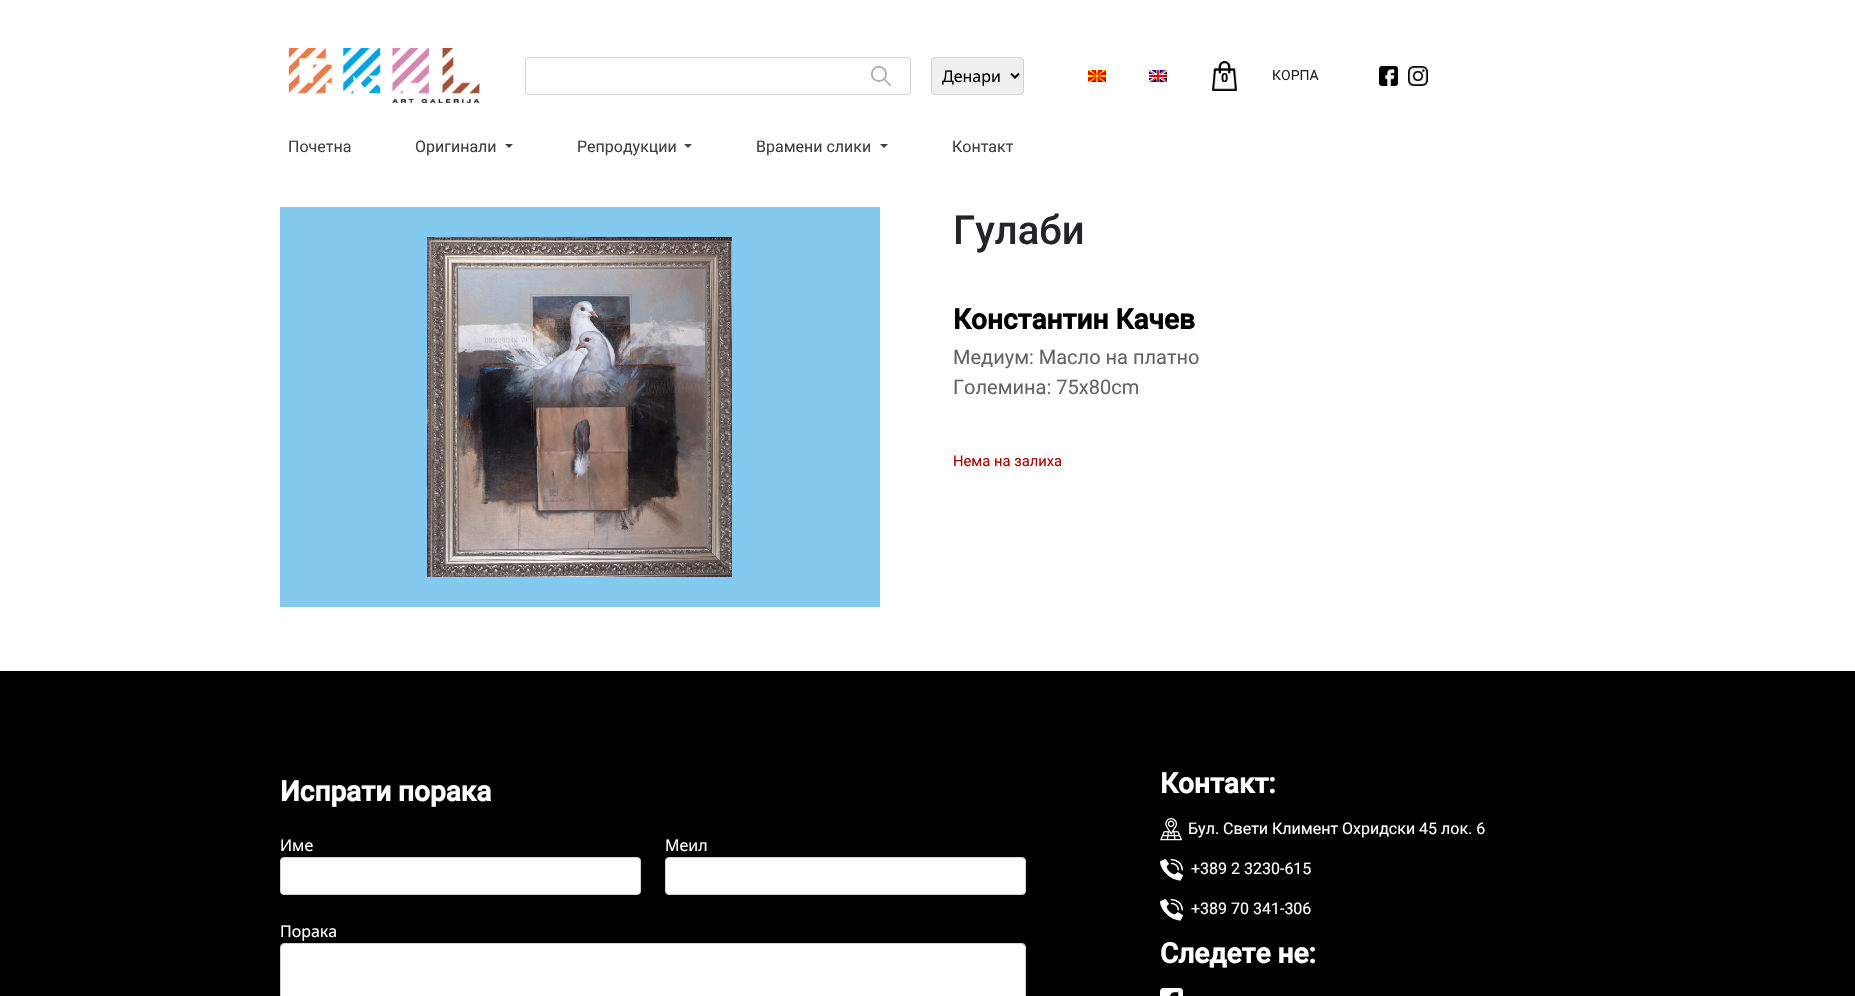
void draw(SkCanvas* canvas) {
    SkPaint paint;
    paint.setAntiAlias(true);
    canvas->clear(0xFFFFFFFF);
    canvas->drawImageRect(SkImages::DeferredFromEncodedData(SkData::MakeFromFileName("img1.png")), SkRect::MakeXYWH(288, 48, 192, 55), SkSamplingOptions());
    paint.setStyle(SkPaint::kStroke_Style);
    paint.setStrokeWidth(1);
    paint.setColor(0xFFCED4DA);
    canvas->drawRoundRect(SkRect::MakeXYWH(525.5f, 57.5f, 385, 37), 3.5f, 3.5f, paint);
    canvas->drawImageRect(SkImages::DeferredFromEncodedData(SkData::MakeFromFileName("img2.png")), SkRect::MakeXYWH(871, 66, 20, 20), SkSamplingOptions());
    paint.setStyle(SkPaint::kFill_Style);
    paint.setColor(0xFFEFEFEF);
    canvas->drawRoundRect(SkRect::MakeXYWH(931.5f, 57.5f, 92, 37), 3.5f, 3.5f, paint);
    paint.setStyle(SkPaint::kStroke_Style);
    paint.setColor(0xFFCED4DA);
    canvas->drawRoundRect(SkRect::MakeXYWH(931.5f, 57.5f, 92, 37), 3.5f, 3.5f, paint);
    paint.setStrokeWidth(2);
    paint.setColor(0xFF000000);
    canvas->drawPath(SkPathBuilder().moveTo(1011, 73.5f).lineTo(1015, 77.5f).lineTo(1019, 73.5f).detach(), paint);
    SkFont font1(fontMgr->matchFamilyStyle("Noto Sans", SkFontStyle::Normal()), 16);
    font1.setSubpixel(true);
    paint.setStyle(SkPaint::kFill_Style);
    canvas->drawString("Денари", 942, 82, font1, paint);
    canvas->drawImageRect(SkImages::DeferredFromEncodedData(SkData::MakeFromFileName("img3.png")), SkRect::MakeXYWH(1088, 70, 18, 12), SkSamplingOptions());
    canvas->drawImageRect(SkImages::DeferredFromEncodedData(SkData::MakeFromFileName("img4.png")), SkRect::MakeXYWH(1149, 70, 18, 12), SkSamplingOptions());
    canvas->drawImageRect(SkImages::DeferredFromEncodedData(SkData::MakeFromFileName("img5.png")), SkRect::MakeXYWH(1212, 61, 25, 30), SkSamplingOptions());
    SkFont font2(fontMgr->matchFamilyStyle("Roboto", SkFontStyle::Bold()), 12);
    font2.setSubpixel(true);
    canvas->drawString("0", 1221, 82, font2, paint);
    SkFont font3(fontMgr->matchFamilyStyle("Roboto", SkFontStyle::Normal()), 14);
    font3.setSubpixel(true);
    paint.setColor(0xFF212529);
    canvas->drawString("КОРПА", 1272, 80, font3, paint);
    canvas->drawImageRect(SkImages::DeferredFromEncodedData(SkData::MakeFromFileName("img6.png")), SkRect::MakeXYWH(1379, 66, 19, 20), SkSamplingOptions());
    canvas->drawImageRect(SkImages::DeferredFromEncodedData(SkData::MakeFromFileName("img7.png")), SkRect::MakeXYWH(1408, 66, 20, 20), SkSamplingOptions());
    SkFont font4(fontMgr->matchFamilyStyle("Roboto", SkFontStyle::Normal()), 16);
    font4.setSubpixel(true);
    paint.setColor(0xFF404040);
    canvas->drawString("Почетна", 288, 152, font4, paint);
    canvas->drawString("Оригинали", 415, 152, font4, paint);
    canvas->drawPath(SkPathBuilder().moveTo(505, 144).lineTo(513, 144).lineTo(509, 148).close().detach(), paint);
    canvas->drawString("Репродукции", 577, 152, font4, paint);
    canvas->drawPath(SkPathBuilder().moveTo(684, 144).lineTo(692, 144).lineTo(688, 148).close().detach(), paint);
    canvas->drawString("Врамени слики", 756, 152, font4, paint);
    canvas->drawPath(SkPathBuilder().moveTo(880, 144).lineTo(888, 144).lineTo(884, 148).close().detach(), paint);
    canvas->drawString("Контакт", 952, 152, font4, paint);
    paint.setColor(0xFF83CAEE);
    canvas->drawRect(SkRect::MakeXYWH(280, 207, 600, 400), paint);
    canvas->drawImageRect(SkImages::DeferredFromEncodedData(SkData::MakeFromFileName("img8.png")), SkRect::MakeXYWH(427, 237, 305, 340), SkSamplingOptions());
    SkFont font5(fontMgr->matchFamilyStyle("Roboto", SkFontStyle(500, SkFontStyle::kNormal_Width, SkFontStyle::kUpright_Slant)), 40);
    font5.setSubpixel(true);
    paint.setColor(0xFF212529);
    canvas->drawString("Гулаби", 953, 244, font5, paint);
    SkFont font6(fontMgr->matchFamilyStyle("Roboto", SkFontStyle::Bold()), 28);
    font6.setSubpixel(true);
    paint.setColor(0xFF000000);
    canvas->drawString("Константин Качев", 953, 329, font6, paint);
    SkFont font7(fontMgr->matchFamilyStyle("Roboto", SkFontStyle::Normal()), 20);
    font7.setSubpixel(true);
    paint.setColor(0xFF646464);
    canvas->drawString("Медиум: Масло на платно", 953, 364, font7, paint);
    canvas->drawString("Големина: 75x80cm", 953, 394, font7, paint);
    SkFont font8(fontMgr->matchFamilyStyle("Roboto", SkFontStyle::Normal()), 14.75f);
    font8.setSubpixel(true);
    paint.setColor(0xFFAA0000);
    canvas->drawString("Нема на залиха", 953, 466, font8, paint);
    paint.setColor(0xFF000000);
    canvas->drawRect(SkRect::MakeXYWH(0, 671, 1855, 325), paint);
    paint.setColor(0xFFFFFFFF);
    canvas->drawString("Испрати порака", 280, 801, font6, paint);
    canvas->drawString("Име", 280, 851, font1, paint);
    canvas->drawRoundRect(SkRect::MakeXYWH(280.5f, 857.5f, 360, 37), 3.5f, 3.5f, paint);
    paint.setStyle(SkPaint::kStroke_Style);
    paint.setStrokeWidth(1);
    paint.setColor(0xFFCED4DA);
    canvas->drawRoundRect(SkRect::MakeXYWH(280.5f, 857.5f, 360, 37), 3.5f, 3.5f, paint);
    paint.setStyle(SkPaint::kFill_Style);
    paint.setColor(0xFFFFFFFF);
    canvas->drawString("Меил", 665, 851, font1, paint);
    canvas->drawRoundRect(SkRect::MakeXYWH(665.5f, 857.5f, 360, 37), 3.5f, 3.5f, paint);
    paint.setStyle(SkPaint::kStroke_Style);
    paint.setColor(0xFFCED4DA);
    canvas->drawRoundRect(SkRect::MakeXYWH(665.5f, 857.5f, 360, 37), 3.5f, 3.5f, paint);
    paint.setStyle(SkPaint::kFill_Style);
    paint.setColor(0xFFFFFFFF);
    canvas->drawString("Порака", 280, 937, font1, paint);
    canvas->drawRoundRect(SkRect::MakeXYWH(281, 944, 744, 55), 3, 3, paint);
    paint.setStyle(SkPaint::kStroke_Style);
    paint.setColor(0xFFCED4DA);
    canvas->drawRoundRect(SkRect::MakeXYWH(280.5f, 943.5f, 745, 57), 3.5f, 3.5f, paint);
    paint.setStyle(SkPaint::kFill_Style);
    paint.setColor(0xFFFFFFFF);
    canvas->drawString("Контакт:", 1160, 793, font6, paint);
    canvas->drawImageRect(SkImages::DeferredFromEncodedData(SkData::MakeFromFileName("img9.png")), SkRect::MakeXYWH(1160, 818, 23, 23), SkSamplingOptions());
    canvas->drawString("Бул. Свети Климент Охридски 45 лок. 6", 1188, 834, font4, paint);
    canvas->drawImageRect(SkImages::DeferredFromEncodedData(SkData::MakeFromFileName("img10.png")), SkRect::MakeXYWH(1160, 859, 23, 22), SkSamplingOptions());
    canvas->drawString("+389 2 3230-615", 1191, 874, font4, paint);
    canvas->drawImageRect(SkImages::DeferredFromEncodedData(SkData::MakeFromFileName("img10.png")), SkRect::MakeXYWH(1160, 899, 23, 22), SkSamplingOptions());
    canvas->drawString("+389 70 341-306", 1191, 914, font4, paint);
    canvas->drawString("Следете не:", 1160, 963, font6, paint);
    canvas->drawImageRect(SkImages::DeferredFromEncodedData(SkData::MakeFromFileName("img11.png")), SkRect::MakeXYWH(1160, 988, 23, 8), SkSamplingOptions());
}
